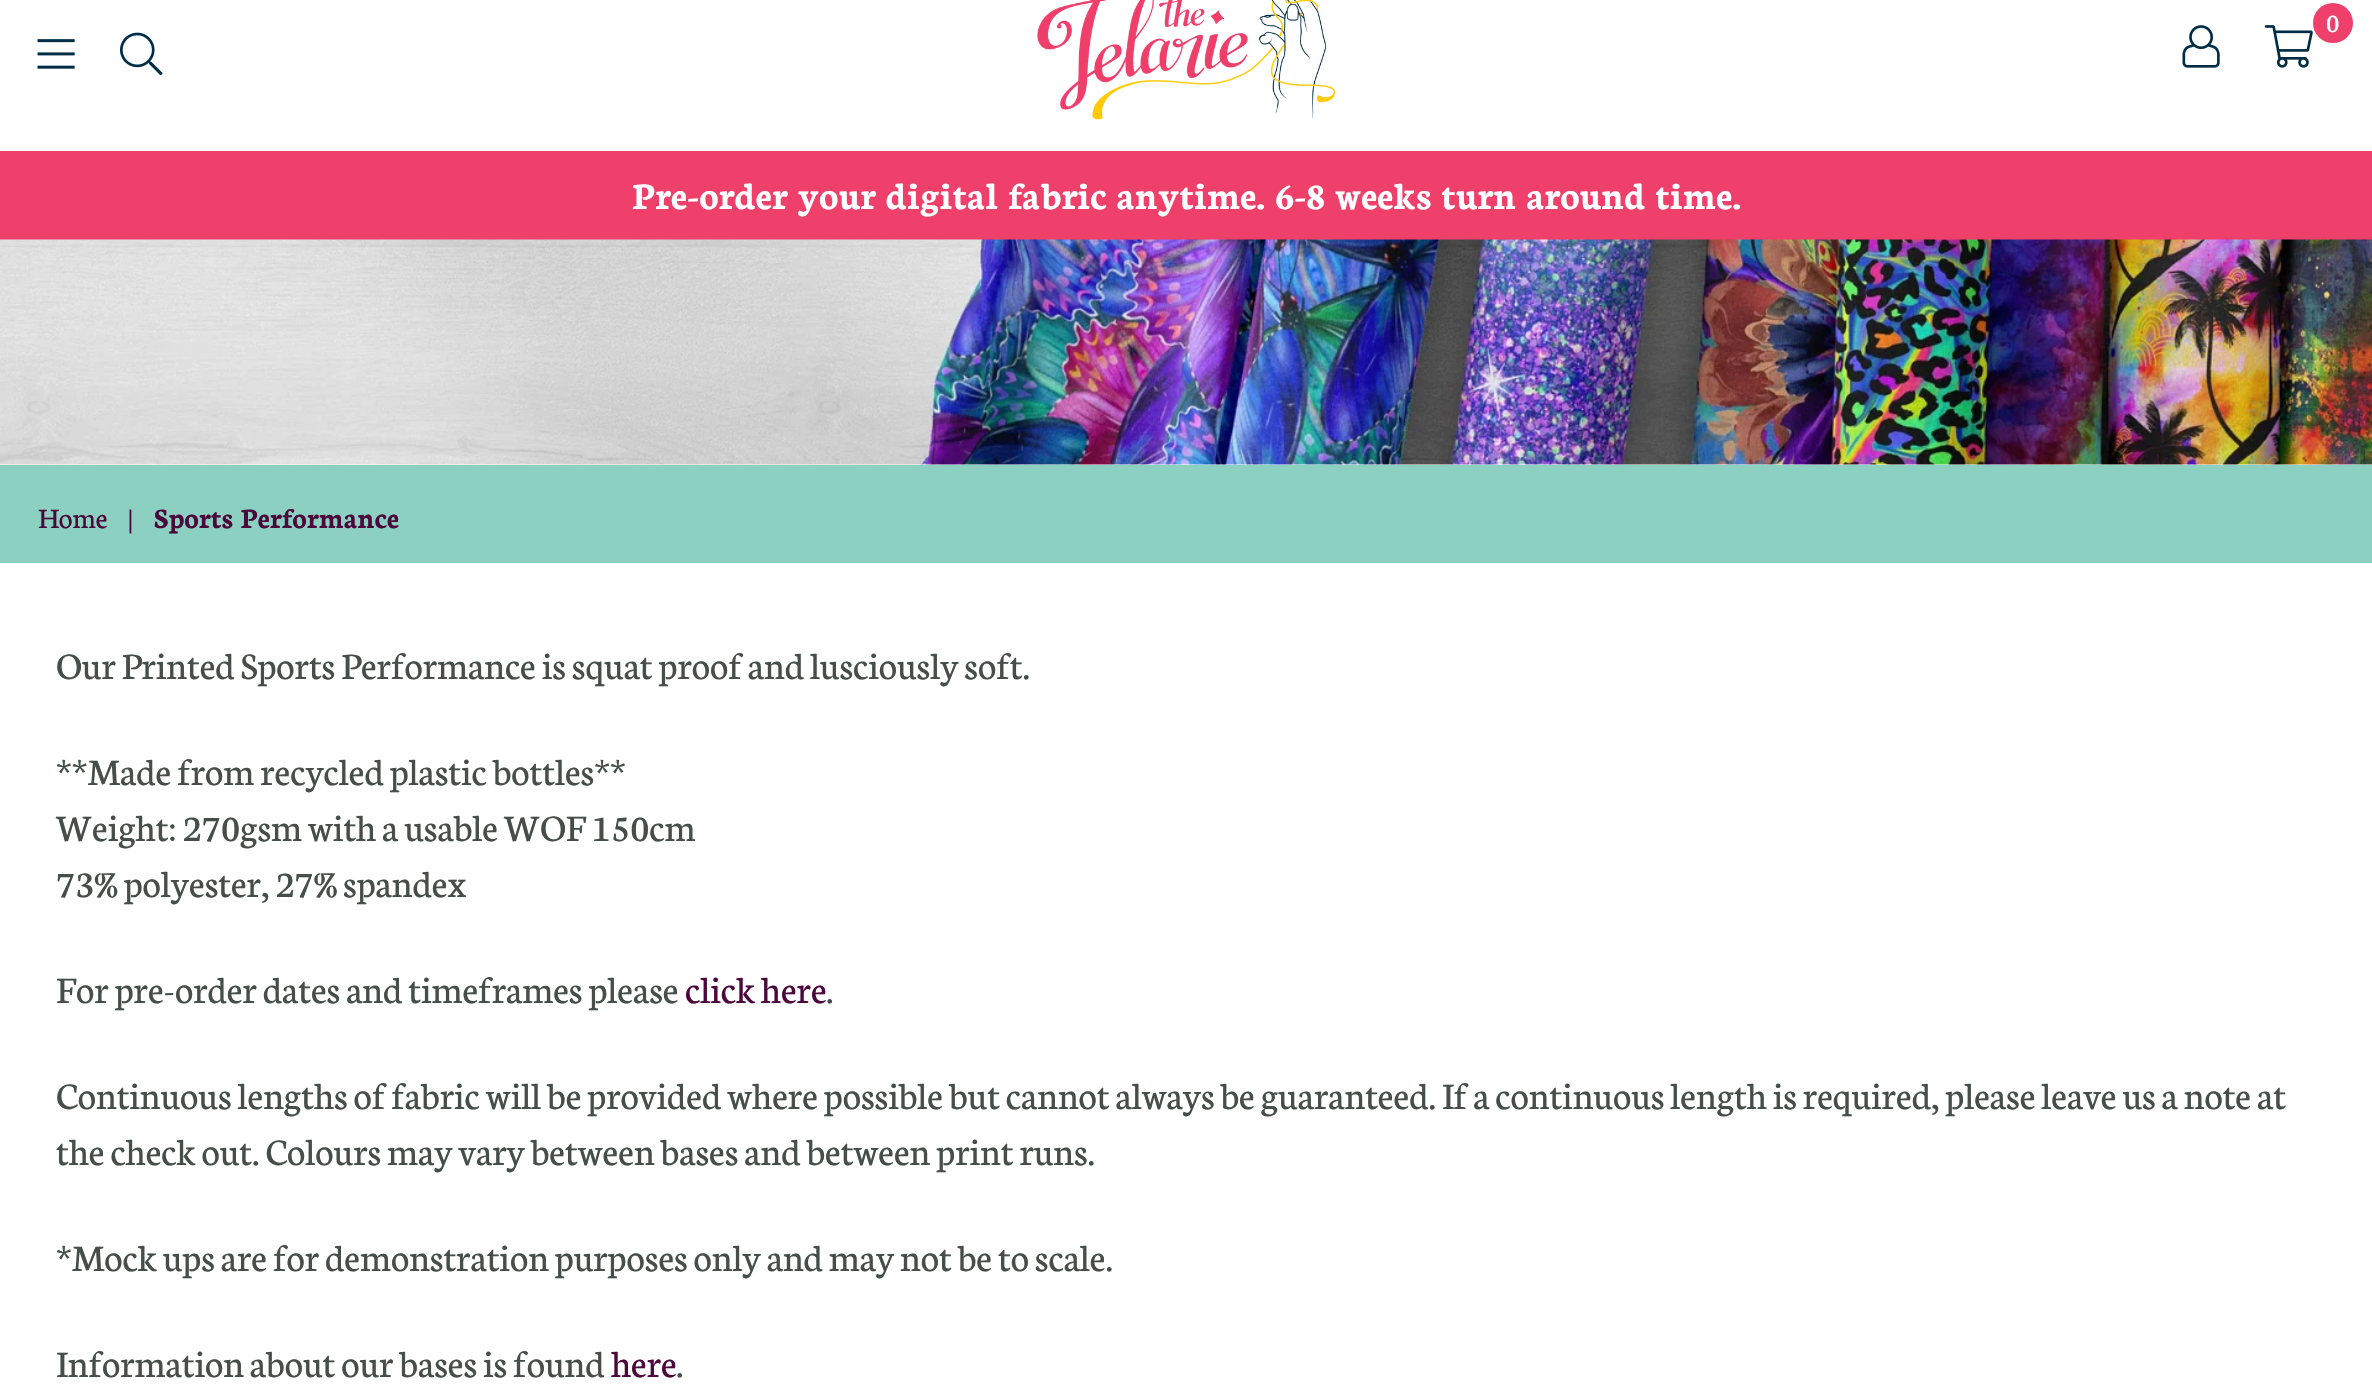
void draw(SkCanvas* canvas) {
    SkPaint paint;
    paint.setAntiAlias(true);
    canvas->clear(0xFFFFFFFF);
    canvas->drawImageRect(SkImages::DeferredFromEncodedData(SkData::MakeFromFileName("img1.png")), SkRect::MakeXYWH(1037, 0, 298, 120), SkSamplingOptions());
    canvas->drawImageRect(SkImages::DeferredFromEncodedData(SkData::MakeFromFileName("img2.png")), SkRect::MakeXYWH(2182, 25, 38, 43), SkSamplingOptions());
    canvas->drawImageRect(SkImages::DeferredFromEncodedData(SkData::MakeFromFileName("img3.png")), SkRect::MakeXYWH(2265, 25, 48, 43), SkSamplingOptions());
    paint.setColor(0xFFEF3F6B);
    canvas->drawCircle(2333, 23, 20, paint);
    SkFont font1(fontMgr->matchFamilyStyle("Neuton", SkFontStyle::Normal()), 28);
    font1.setSubpixel(true);
    paint.setColor(0xFFFFFFFF);
    canvas->drawString("0", 2326, 32, font1, paint);
    canvas->drawImageRect(SkImages::DeferredFromEncodedData(SkData::MakeFromFileName("img4.png")), SkRect::MakeXYWH(37, 39, 38, 30), SkSamplingOptions());
    canvas->drawImageRect(SkImages::DeferredFromEncodedData(SkData::MakeFromFileName("img5.png")), SkRect::MakeXYWH(120, 32, 43, 44), SkSamplingOptions());
    paint.setColor(0xFFEF3F6B);
    canvas->drawRect(SkRect::MakeXYWH(0, 151, 2372, 89), paint);
    SkFont font2(fontMgr->matchFamilyStyle("Neuton", SkFontStyle::Bold()), 40);
    font2.setSubpixel(true);
    paint.setColor(0xFFFFFFFF);
    canvas->drawString("Pre-order your digital fabric anytime. 6-8 weeks turn around time.", 632, 209, font2, paint);
    canvas->drawImageRect(SkImages::DeferredFromEncodedData(SkData::MakeFromFileName("img6.png")), SkRect::MakeXYWH(0, 239, 2372, 226), SkSamplingOptions());
    paint.setColor(0xFF8BD0C0);
    canvas->drawRect(SkRect::MakeXYWH(0, 465, 2372, 98), paint);
    SkFont font3(fontMgr->matchFamilyStyle("Neuton", SkFontStyle::Normal()), 30);
    font3.setSubpixel(true);
    paint.setColor(0xFF4C083C);
    canvas->drawString("Home", 38, 528, font3, paint);
    canvas->drawString("|", 128, 528, font3, paint);
    SkFont font4(fontMgr->matchFamilyStyle("Neuton", SkFontStyle::Bold()), 30);
    font4.setSubpixel(true);
    canvas->drawString("Sports Performance", 154, 528, font4, paint);
    SkFont font5(fontMgr->matchFamilyStyle("Neuton", SkFontStyle::Normal()), 40);
    font5.setSubpixel(true);
    paint.setColor(0xFF474E49);
    canvas->drawString("Our Printed Sports Performance is squat proof and lusciously soft.", 56, 679, font5, paint);
    canvas->drawString("**Made from recycled plastic bottles**", 56, 785, font5, paint);
    canvas->drawString("Weight: 270gsm with a usable WOF 150cm", 56, 841, font5, paint);
    canvas->drawString("73% polyester, 27% spandex", 56, 897, font5, paint);
    canvas->drawString("For pre-order dates and timeframes please", 56, 1003, font5, paint);
    paint.setColor(0xFF4C083C);
    canvas->drawString("click here", 685, 1003, font5, paint);
    paint.setColor(0xFF474E49);
    canvas->drawString(".", 826, 1003, font5, paint);
    canvas->drawString("Continuous lengths of fabric will be provided where possible but cannot always be guaranteed. If a continuous length is required, please leave us a note at", 56, 1109, font5, paint);
    canvas->drawString("the check out. Colours may vary between bases and between print runs.", 56, 1165, font5, paint);
    canvas->drawString("*Mock ups are for demonstration purposes only and may not be to scale.", 56, 1271, font5, paint);
    canvas->drawString("Information about our bases is found", 56, 1377, font5, paint);
    paint.setColor(0xFF4C083C);
    canvas->drawString("here", 611, 1377, font5, paint);
    paint.setColor(0xFF474E49);
    canvas->drawString(".", 676, 1377, font5, paint);
}
